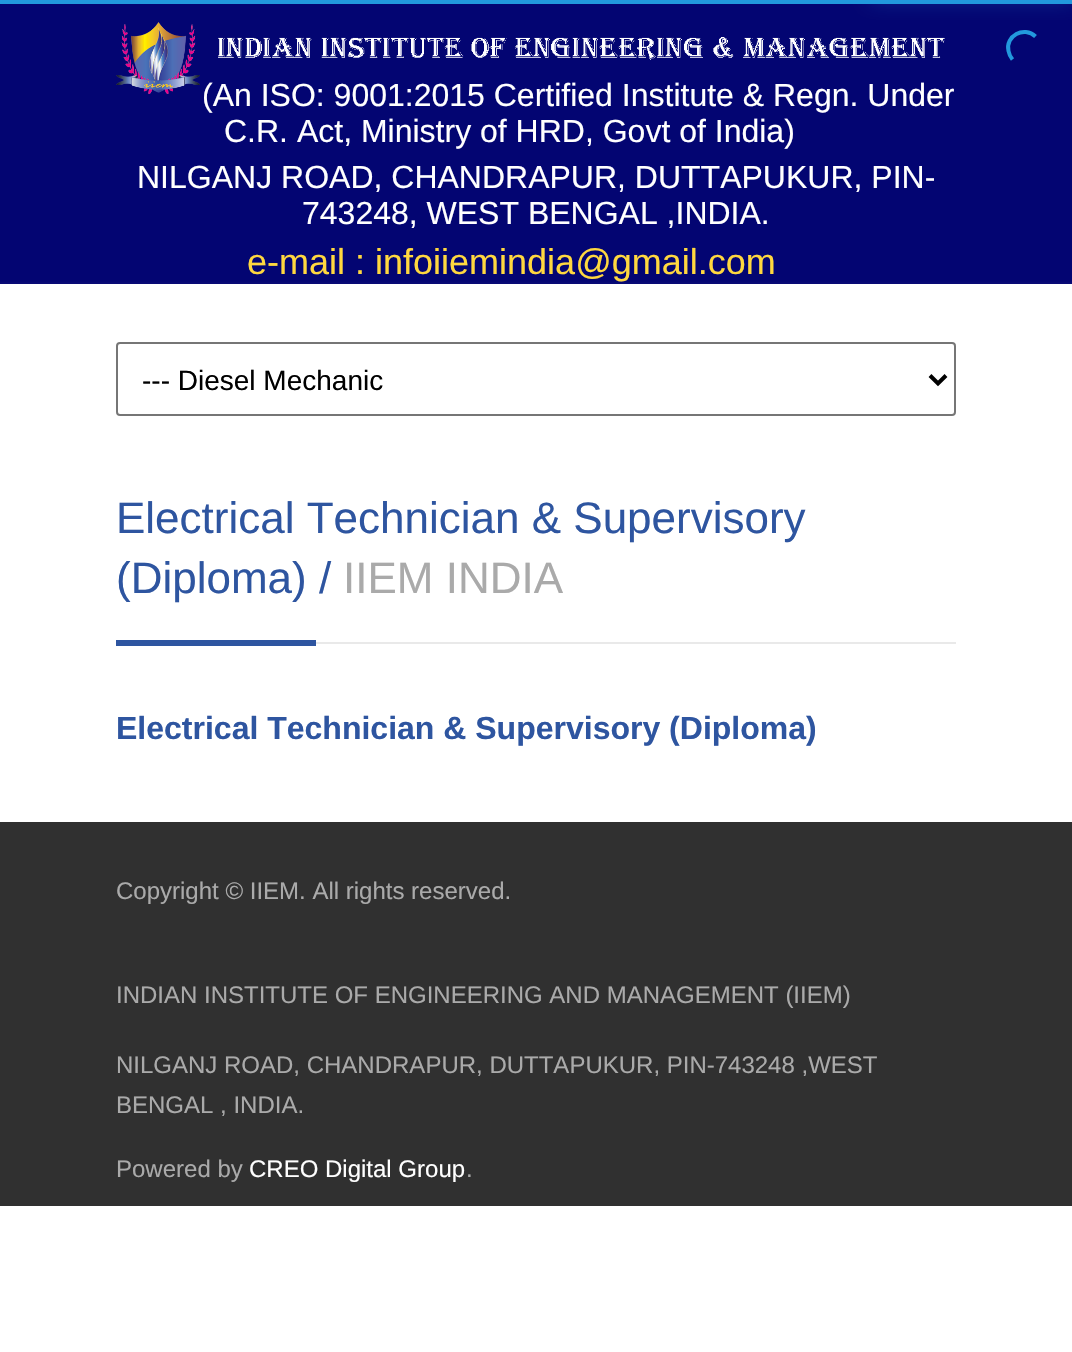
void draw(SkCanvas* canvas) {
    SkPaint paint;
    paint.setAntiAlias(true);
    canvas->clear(0xFFFFFFFF);
    paint.setColor(0xFF2299DD);
    canvas->drawRect(SkRect::MakeXYWH(0, 0, 1072, 4), paint);
    canvas->drawImageRect(SkImages::DeferredFromEncodedData(SkData::MakeFromFileName("img1.png")), SkRect::MakeXYWH(0, 4, 1072, 280), SkSamplingOptions());
    paint.setMaskFilter(SkMaskFilter::MakeBlur(kNormal_SkBlurStyle, 10));
    canvas->drawRect(SkRect::MakeXYWH(872, -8, 200, 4), paint);
    paint.setMaskFilter(nullptr);
    paint.setStyle(SkPaint::kStroke_Style);
    paint.setStrokeWidth(4);
    canvas->drawPath(SkPathBuilder().moveTo(1012.5f, 59.5f).cubicTo(1010.5f, 57, 1009, 54, 1008.5f, 51).cubicTo(1005, 36, 1024, 25.5f, 1035.5f, 36.5f).detach(), paint);
    canvas->drawImageRect(SkImages::DeferredFromEncodedData(SkData::MakeFromFileName("img2.png")), SkRect::MakeXYWH(116, 22, 84, 72), SkSamplingOptions());
    canvas->drawImageRect(SkImages::DeferredFromEncodedData(SkData::MakeFromFileName("img3.png")), SkRect::MakeXYWH(218, 37, 727, 23), SkSamplingOptions());
    SkFont font1(fontMgr->matchFamilyStyle("Liberation Sans", SkFontStyle::Normal()), 32);
    font1.setSubpixel(true);
    paint.setStyle(SkPaint::kFill_Style);
    paint.setColor(0xFFFFFFFF);
    canvas->drawString("(An ISO: 9001:2015 Certified Institute & Regn. Under", 202, 106, font1, paint);
    canvas->drawString("C.R. Act, Ministry of HRD, Govt of India)", 224, 142, font1, paint);
    canvas->drawString("NILGANJ ROAD, CHANDRAPUR, DUTTAPUKUR, PIN-", 137, 188, font1, paint);
    canvas->drawString("743248, WEST BENGAL ,INDIA.", 302, 224, font1, paint);
    SkFont font2(fontMgr->matchFamilyStyle("Liberation Sans", SkFontStyle::Normal()), 36);
    font2.setSubpixel(true);
    paint.setColor(0xFFFFD83F);
    canvas->drawString("e-mail : infoiiemindia@gmail.com", 247, 274, font2, paint);
    paint.setStyle(SkPaint::kStroke_Style);
    paint.setStrokeWidth(2);
    paint.setColor(0xFF767676);
    canvas->drawRoundRect(SkRect::MakeXYWH(117, 343, 838, 72), 3, 3, paint);
    paint.setStrokeWidth(4);
    paint.setColor(0xFF000000);
    canvas->drawPath(SkPathBuilder().moveTo(930, 375.5f).lineTo(938, 383.5f).lineTo(946, 375.5f).detach(), paint);
    SkFont font3(fontMgr->matchFamilyStyle("Liberation Sans", SkFontStyle::Normal()), 28);
    font3.setSubpixel(true);
    paint.setStyle(SkPaint::kFill_Style);
    canvas->drawString("--- Diesel Mechanic", 142, 390, font3, paint);
    paint.setColor(0xFFE9E9E9);
    canvas->drawRect(SkRect::MakeXYWH(316, 642, 640, 2), paint);
    SkFont font4(fontMgr->matchFamilyStyle("Liberation Sans", SkFontStyle::Normal()), 44);
    font4.setSubpixel(true);
    paint.setColor(0xFF2E55A0);
    canvas->drawString("Electrical Technician & Supervisory", 116, 533, font4, paint);
    canvas->drawString("(Diploma) /", 116, 593, font4, paint);
    paint.setColor(0xFFAAAAAA);
    canvas->drawString("IIEM INDIA", 343, 593, font4, paint);
    paint.setColor(0xFF2E55A0);
    canvas->drawRect(SkRect::MakeXYWH(116, 640, 200, 6), paint);
    SkFont font5(fontMgr->matchFamilyStyle("Liberation Sans", SkFontStyle::Bold()), 32);
    font5.setSubpixel(true);
    canvas->drawString("Electrical Technician & Supervisory (Diploma)", 116, 739, font5, paint);
    paint.setColor(0xFF303030);
    canvas->drawRect(SkRect::MakeXYWH(0, 822, 1072, 384), paint);
    SkFont font6(fontMgr->matchFamilyStyle("Liberation Sans", SkFontStyle::Normal()), 24);
    font6.setSubpixel(true);
    paint.setColor(0xFFAAAAAA);
    canvas->drawString("Copyright © IIEM. All rights reserved.", 116, 899, font6, paint);
    canvas->drawString("INDIAN INSTITUTE OF ENGINEERING AND MANAGEMENT (IIEM)", 116, 1003, font6, paint);
    canvas->drawString("NILGANJ ROAD, CHANDRAPUR, DUTTAPUKUR, PIN-743248 ,WEST", 116, 1073, font6, paint);
    canvas->drawString("BENGAL , INDIA.", 116, 1113, font6, paint);
    canvas->drawString("Powered by", 116, 1177, font6, paint);
    paint.setColor(0xFFFFFFFF);
    canvas->drawString("CREO Digital Group", 249, 1177, font6, paint);
    paint.setColor(0xFFAAAAAA);
    canvas->drawString(".", 466, 1177, font6, paint);
}
